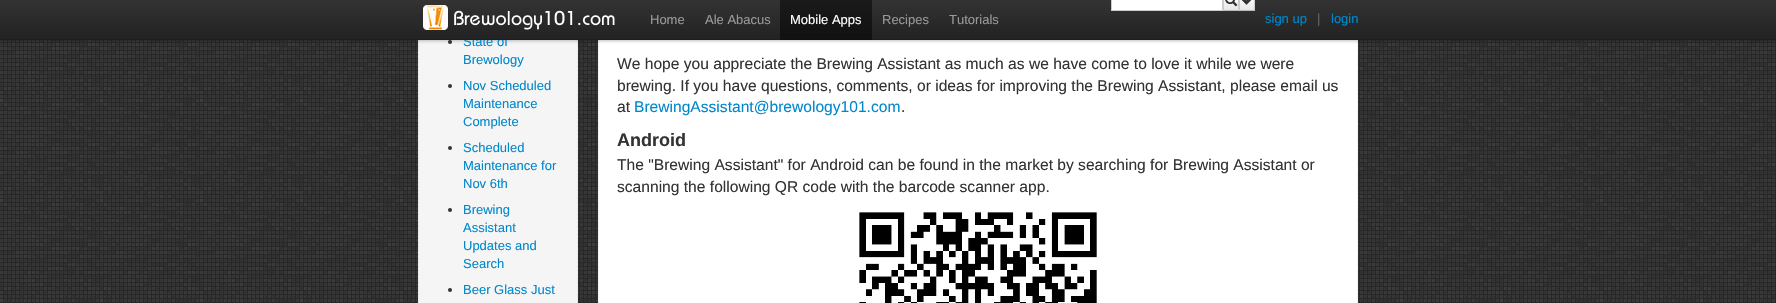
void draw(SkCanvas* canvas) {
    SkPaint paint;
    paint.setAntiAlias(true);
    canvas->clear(0xFFFFFFFF);
    canvas->drawImageRect(SkImages::DeferredFromEncodedData(SkData::MakeFromFileName("img1.png")), SkRect::MakeXYWH(0, 40, 1776, 263), SkSamplingOptions());
    paint.setColor(0xFFF5F5F5);
    canvas->drawRect(SkRect::MakeXYWH(419, 40, 158, 263), paint);
    paint.setStyle(SkPaint::kStroke_Style);
    paint.setStrokeWidth(1);
    paint.setColor(0xFFE9E9E9);
    canvas->drawRect(SkRect::MakeXYWH(418.5f, -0.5f, 159, 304), paint);
    paint.setStyle(SkPaint::kFill_Style);
    paint.setColor(0xFF333333);
    canvas->drawCircle(450, 42, 2, paint);
    paint.setColor(0xFFFFFFFF);
    canvas->drawRect(SkRect::MakeXYWH(599, 40, 758, 263), paint);
    paint.setStyle(SkPaint::kStroke_Style);
    paint.setColor(0xFFF2F2F2);
    canvas->drawRect(SkRect::MakeXYWH(598.5f, -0.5f, 759, 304), paint);
    paint.setStyle(SkPaint::kFill_Style);
    paint.setColor(0x40000000);
    paint.setMaskFilter(SkMaskFilter::MakeBlur(kNormal_SkBlurStyle, 1.5f));
    canvas->drawRect(SkRect::MakeXYWH(0, 1, 1776, 40), paint);
    paint.setMaskFilter(nullptr);
    SkFont font1(fontMgr->matchFamilyStyle("Liberation Sans", SkFontStyle::Normal()), 13);
    font1.setSubpixel(true);
    paint.setColor(0xFF0088CC);
    canvas->drawString("State of", 463, 46, font1, paint);
    {
        const SkColor colors[] = {0xFF333333, 0xFF222222};
        const float stops[] = {0, 1};
        const SkPoint ends[] = {{888, 0}, {888, 40}};
        paint.setShader(SkGradientShader::MakeLinear(ends, colors, stops, 2, SkTileMode::kClamp));
        paint.setAlpha(255);
    }
    canvas->drawRect(SkRect::MakeXYWH(0, 0, 1776, 39), paint);
    paint.setShader(nullptr);
    paint.setColor(0xFF1F1F1F);
    canvas->drawRect(SkRect::MakeXYWH(0, 39, 1776, 1), paint);
    canvas->drawImageRect(SkImages::DeferredFromEncodedData(SkData::MakeFromFileName("img2.png")), SkRect::MakeXYWH(423, 5, 192, 25), SkSamplingOptions());
    paint.setColor(0xFF999999);
    canvas->drawString("Home", 650, 24, font1, paint);
    canvas->drawString("Ale Abacus", 705, 24, font1, paint);
    paint.setColor(0x80000000);
    canvas->drawRect(SkRect::MakeXYWH(780, 0, 92, 40), paint);
    paint.setColor(0xFFFFFFFF);
    canvas->drawString("Mobile Apps", 790, 24, font1, paint);
    paint.setColor(0xFF999999);
    canvas->drawString("Recipes", 882, 24, font1, paint);
    canvas->drawString("Tutorials", 949, 24, font1, paint);
    paint.setColor(0xFFFFFFFF);
    canvas->drawRect(SkRect::MakeXYWH(1111.5f, -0.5f, 111, 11), paint);
    paint.setStyle(SkPaint::kStroke_Style);
    paint.setColor(0xFFCCCCCC);
    canvas->drawRect(SkRect::MakeXYWH(1111.5f, -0.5f, 111, 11), paint);
    paint.setStyle(SkPaint::kFill_Style);
    {
        const SkColor colors[] = {0xFFFFFFFF, 0xFFFFFFFF, 0xFFE6E6E6};
        const float stops[] = {0, 0.25f, 1};
        const SkPoint ends[] = {{1231, -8}, {1231, 10}};
        paint.setShader(SkGradientShader::MakeLinear(ends, colors, stops, 3, SkTileMode::kClamp));
        paint.setAlpha(255);
    }
    canvas->drawRect(SkRect::MakeXYWH(1224, 0, 14, 10), paint);
    paint.setShader(nullptr);
    paint.setColor(0xFFCCCCCC);
    canvas->drawRect(SkRect::MakeXYWH(1238, 0, 1, 11), paint);
    paint.setColor(0xFFBBBBBB);
    canvas->drawRect(SkRect::MakeXYWH(1223, 10, 16, 1), paint);
    paint.setColor(0xFFCCCCCC);
    canvas->drawRect(SkRect::MakeXYWH(1223, 0, 1, 11), paint);
    canvas->drawImageRect(SkImages::DeferredFromEncodedData(SkData::MakeFromFileName("img3.png")), SkRect::MakeXYWH(1225, 0, 13, 7), SkSamplingOptions());
    {
        const SkColor colors[] = {0xFFFFFFFF, 0xFFFFFFFF, 0xFFE6E6E6};
        const float stops[] = {0, 0.25f, 1};
        const SkPoint ends[] = {{1247, -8}, {1247, 10}};
        paint.setShader(SkGradientShader::MakeLinear(ends, colors, stops, 3, SkTileMode::kClamp));
        paint.setAlpha(255);
    }
    canvas->drawRect(SkRect::MakeXYWH(1240, 0, 14, 10), paint);
    paint.setShader(nullptr);
    paint.setColor(0xFFCCCCCC);
    canvas->drawRect(SkRect::MakeXYWH(1254, 0, 1, 11), paint);
    paint.setColor(0xFFBBBBBB);
    canvas->drawRect(SkRect::MakeXYWH(1239, 10, 16, 1), paint);
    paint.setColor(0xFFCCCCCC);
    canvas->drawRect(SkRect::MakeXYWH(1239, 0, 1, 11), paint);
    canvas->drawImageRect(SkImages::DeferredFromEncodedData(SkData::MakeFromFileName("img4.png")), SkRect::MakeXYWH(1241, 0, 11, 5), SkSamplingOptions());
    paint.setColor(0xFF0088CC);
    canvas->drawString("sign up", 1265, 23, font1, paint);
    paint.setColor(0xFF666666);
    canvas->drawString("|", 1317, 23, font1, paint);
    paint.setColor(0xFF0088CC);
    canvas->drawString("login", 1331, 23, font1, paint);
    canvas->drawString("Brewology", 463, 64, font1, paint);
    paint.setColor(0xFF333333);
    canvas->drawCircle(450, 86, 2, paint);
    paint.setColor(0xFF0088CC);
    canvas->drawString("Nov Scheduled", 463, 90, font1, paint);
    canvas->drawString("Maintenance", 463, 108, font1, paint);
    canvas->drawString("Complete", 463, 126, font1, paint);
    paint.setColor(0xFF333333);
    canvas->drawCircle(450, 148, 2, paint);
    paint.setColor(0xFF0088CC);
    canvas->drawString("Scheduled", 463, 152, font1, paint);
    canvas->drawString("Maintenance for", 463, 170, font1, paint);
    canvas->drawString("Nov 6th", 463, 188, font1, paint);
    paint.setColor(0xFF333333);
    canvas->drawCircle(450, 210, 2, paint);
    paint.setColor(0xFF0088CC);
    canvas->drawString("Brewing", 463, 214, font1, paint);
    canvas->drawString("Assistant", 463, 232, font1, paint);
    canvas->drawString("Updates and", 463, 250, font1, paint);
    canvas->drawString("Search", 463, 268, font1, paint);
    paint.setColor(0xFF333333);
    canvas->drawCircle(450, 290, 2, paint);
    paint.setColor(0xFF0088CC);
    canvas->drawString("Beer Glass Just", 463, 294, font1, paint);
    SkFont font2(fontMgr->matchFamilyStyle("Liberation Sans", SkFontStyle::Normal()), 15.6f);
    font2.setSubpixel(true);
    paint.setColor(0xFF333333);
    canvas->drawString("We hope you appreciate the Brewing Assistant as much as we have come to love it while we were", 617, 69, font2, paint);
    canvas->drawString("brewing. If you have questions, comments, or ideas for improving the Brewing Assistant, please email us", 617, 91, font2, paint);
    canvas->drawString("at", 617, 112, font2, paint);
    paint.setColor(0xFF0088CC);
    canvas->drawString("BrewingAssistant@brewology101.com", 634, 112, font2, paint);
    paint.setColor(0xFF333333);
    canvas->drawString(".", 901, 112, font2, paint);
    SkFont font3(fontMgr->matchFamilyStyle("Liberation Sans", SkFontStyle::Bold()), 18);
    font3.setSubpixel(true);
    canvas->drawString("Android", 617, 146, font3, paint);
    canvas->drawString("The \"Brewing Assistant\" for Android can be found in the market by searching for Brewing Assistant or", 617, 170, font2, paint);
    canvas->drawString("scanning the following QR code with the barcode scanner app.", 617, 192, font2, paint);
    canvas->drawImageRect(SkImages::DeferredFromEncodedData(SkData::MakeFromFileName("img5.png")), SkRect::MakeXYWH(859, 212, 238, 91), SkSamplingOptions());
}
